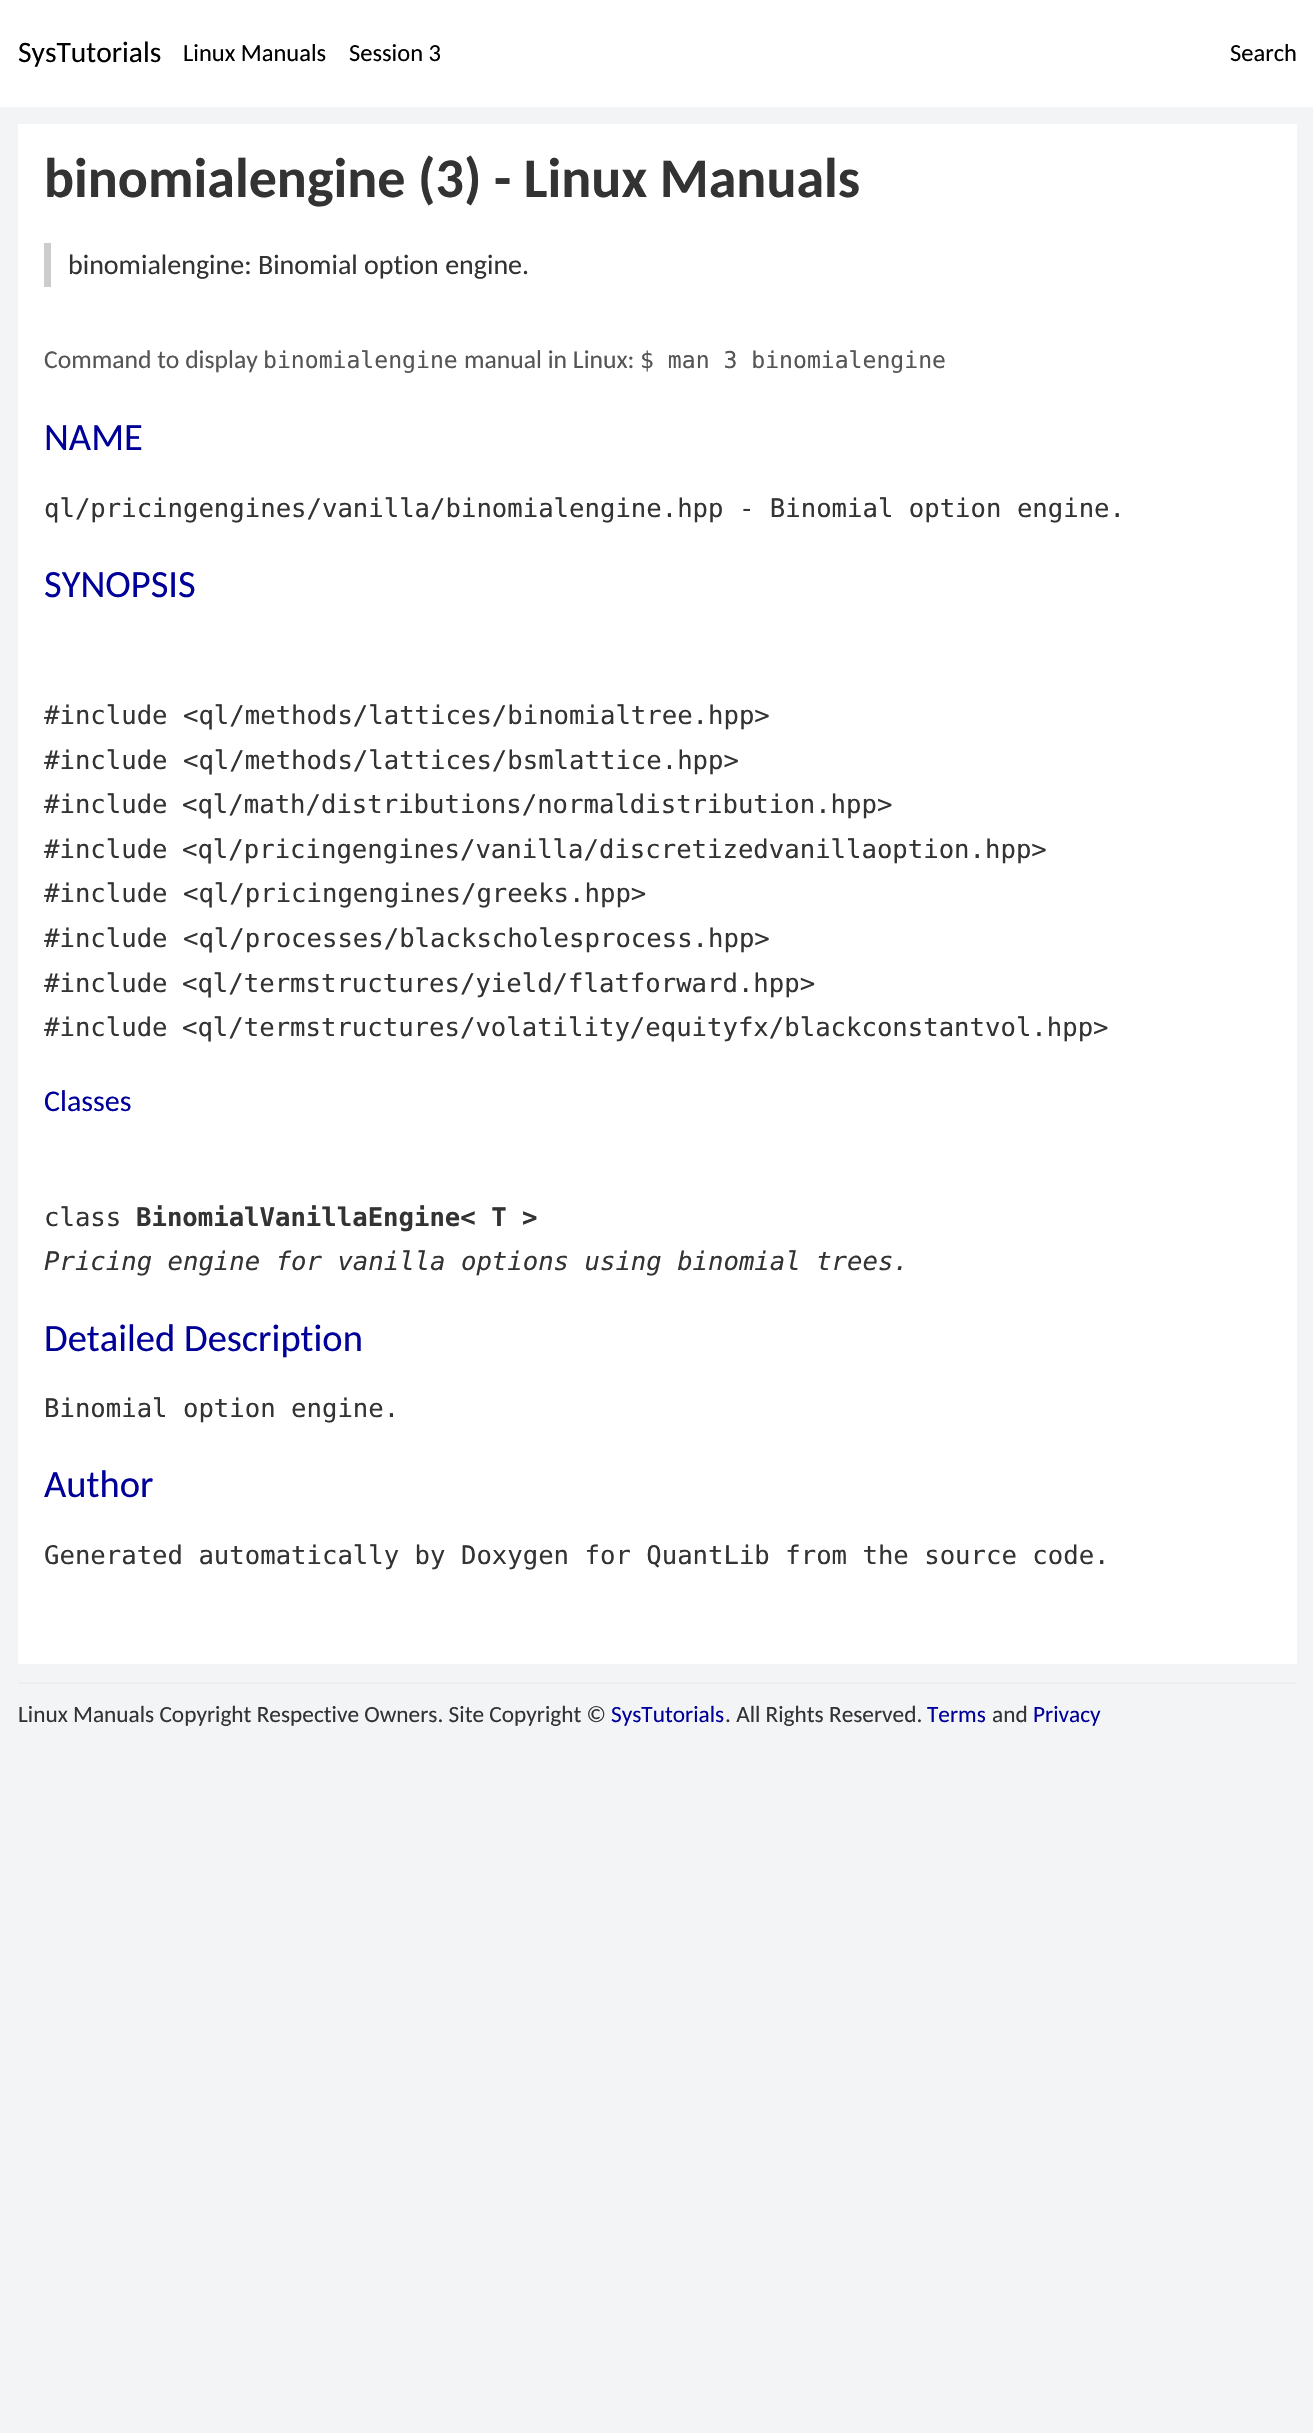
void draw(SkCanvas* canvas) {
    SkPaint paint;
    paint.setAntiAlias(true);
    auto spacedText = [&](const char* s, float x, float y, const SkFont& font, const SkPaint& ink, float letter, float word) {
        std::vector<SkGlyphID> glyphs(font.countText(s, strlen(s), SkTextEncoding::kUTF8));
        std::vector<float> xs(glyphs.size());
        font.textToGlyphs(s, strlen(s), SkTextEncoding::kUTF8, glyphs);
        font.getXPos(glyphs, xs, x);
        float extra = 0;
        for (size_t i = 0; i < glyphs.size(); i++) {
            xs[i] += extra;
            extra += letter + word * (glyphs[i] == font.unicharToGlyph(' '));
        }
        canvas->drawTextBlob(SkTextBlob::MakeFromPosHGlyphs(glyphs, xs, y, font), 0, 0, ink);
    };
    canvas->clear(0xFFF3F4F6);
    paint.setColor(0xFFFFFFFF);
    canvas->drawRect(SkRect::MakeXYWH(0, 0, 1313, 107), paint);
    SkFont font1(fontMgr->matchFamilyStyle("Carlito", SkFontStyle::Normal()), 29.5f);
    font1.setSubpixel(true);
    paint.setColor(0xFF000000);
    canvas->drawString("SysTutorials", 18, 62, font1, paint);
    SkFont font2(fontMgr->matchFamilyStyle("Carlito", SkFontStyle::Normal()), 24.5f);
    font2.setSubpixel(true);
    canvas->drawString("Linux Manuals", 183, 61, font2, paint);
    canvas->drawString("Session 3", 349, 61, font2, paint);
    canvas->drawString("Search", 1230, 61, font2, paint);
    paint.setColor(0xFFFFFFFF);
    canvas->drawRect(SkRect::MakeXYWH(18, 124, 1279, 1540), paint);
    SkFont font3(fontMgr->matchFamilyStyle("Carlito", SkFontStyle::Bold()), 56);
    font3.setSubpixel(true);
    paint.setColor(0xFF333333);
    canvas->drawString("binomialengine (3) - Linux Manuals", 44, 197, font3, paint);
    paint.setColor(0xFFCCCCCC);
    canvas->drawRect(SkRect::MakeXYWH(44, 243, 7, 44), paint);
    SkFont font4(fontMgr->matchFamilyStyle("Carlito", SkFontStyle::Normal()), 28);
    font4.setSubpixel(true);
    paint.setColor(0xFF333333);
    canvas->drawString("binomialengine: Binomial option engine.", 68, 274, font4, paint);
    SkFont font5(fontMgr->matchFamilyStyle("Carlito", SkFontStyle::Normal()), 25.65f);
    font5.setSubpixel(true);
    paint.setColor(0xFF555555);
    canvas->drawString("Command to display", 44, 368, font5, paint);
    SkFont font6(fontMgr->matchFamilyStyle("DejaVu Sans Mono", SkFontStyle::Normal()), 23.1f);
    font6.setSubpixel(true);
    canvas->drawString("binomialengine", 263, 368, font6, paint);
    canvas->drawString("manual in Linux:", 464, 368, font5, paint);
    canvas->drawString("$ man 3 binomialengine", 640, 368, font6, paint);
    SkFont font7(fontMgr->matchFamilyStyle("Carlito", SkFontStyle::Normal()), 38.5f);
    font7.setSubpixel(true);
    paint.setColor(0xFF000099);
    canvas->drawString("NAME", 44, 450, font7, paint);
    SkFont font8(fontMgr->matchFamilyStyle("DejaVu Sans Mono", SkFontStyle::Normal()), 25.65f);
    font8.setSubpixel(true);
    paint.setColor(0xFF333333);
    canvas->drawString("ql/pricingengines/vanilla/binomialengine.hpp - Binomial option engine.", 44, 517, font8, paint);
    paint.setColor(0xFF000099);
    canvas->drawString("SYNOPSIS", 44, 597, font7, paint);
    paint.setColor(0xFF333333);
    canvas->drawString("#include <ql/methods/lattices/binomialtree.hpp>", 44, 724, font8, paint);
    canvas->drawString("#include <ql/methods/lattices/bsmlattice.hpp>", 44, 769, font8, paint);
    spacedText("#include <ql/math/distributions/normaldistribution.hpp>", 44, 813, font8, paint, 0, -1);
    spacedText("#include <ql/pricingengines/vanilla/discretizedvanillaoption.hpp>", 44, 858, font8, paint, 0, -1);
    canvas->drawString("#include <ql/pricingengines/greeks.hpp>", 44, 902, font8, paint);
    canvas->drawString("#include <ql/processes/blackscholesprocess.hpp>", 44, 947, font8, paint);
    spacedText("#include <ql/termstructures/yield/flatforward.hpp>", 44, 992, font8, paint, 0, -1);
    spacedText("#include <ql/termstructures/volatility/equityfx/blackconstantvol.hpp>", 44, 1036, font8, paint, 0, -1);
    SkFont font9(fontMgr->matchFamilyStyle("Carlito", SkFontStyle::Normal()), 30);
    font9.setSubpixel(true);
    paint.setColor(0xFF000099);
    canvas->drawString("Classes", 44, 1111, font9, paint);
    paint.setColor(0xFF333333);
    canvas->drawString("class", 44, 1226, font8, paint);
    SkFont font10(fontMgr->matchFamilyStyle("DejaVu Sans Mono", SkFontStyle::Bold()), 25.65f);
    font10.setSubpixel(true);
    canvas->drawString("BinomialVanillaEngine< T >", 136, 1226, font10, paint);
    SkFont font11(fontMgr->matchFamilyStyle("DejaVu Sans Mono", SkFontStyle::Italic()), 25.65f);
    font11.setSubpixel(true);
    canvas->drawString("Pricing engine for vanilla options using binomial trees.", 44, 1270, font11, paint);
    paint.setColor(0xFF000099);
    canvas->drawString("Detailed Description", 44, 1351, font7, paint);
    paint.setColor(0xFF333333);
    canvas->drawString("Binomial option engine.", 44, 1417, font8, paint);
    paint.setColor(0xFF000099);
    canvas->drawString("Author", 44, 1497, font7, paint);
    paint.setColor(0xFF333333);
    canvas->drawString("Generated automatically by Doxygen for QuantLib from the source code.", 44, 1564, font8, paint);
    paint.setColor(0xFFEEEEEE);
    canvas->drawRect(SkRect::MakeXYWH(18, 1682, 1279, 2), paint);
    SkFont font12(fontMgr->matchFamilyStyle("Carlito", SkFontStyle::Normal()), 23.3f);
    font12.setSubpixel(true);
    paint.setColor(0xFF333333);
    canvas->drawString("Linux Manuals Copyright Respective Owners. Site Copyright ©", 18, 1722, font12, paint);
    paint.setColor(0xFF000099);
    canvas->drawString("SysTutorials", 611, 1722, font12, paint);
    paint.setColor(0xFF333333);
    canvas->drawString(". All Rights Reserved.", 725, 1722, font12, paint);
    paint.setColor(0xFF000099);
    canvas->drawString("Terms", 927, 1722, font12, paint);
    paint.setColor(0xFF333333);
    canvas->drawString("and", 992, 1722, font12, paint);
    paint.setColor(0xFF000099);
    canvas->drawString("Privacy", 1033, 1722, font12, paint);
}
